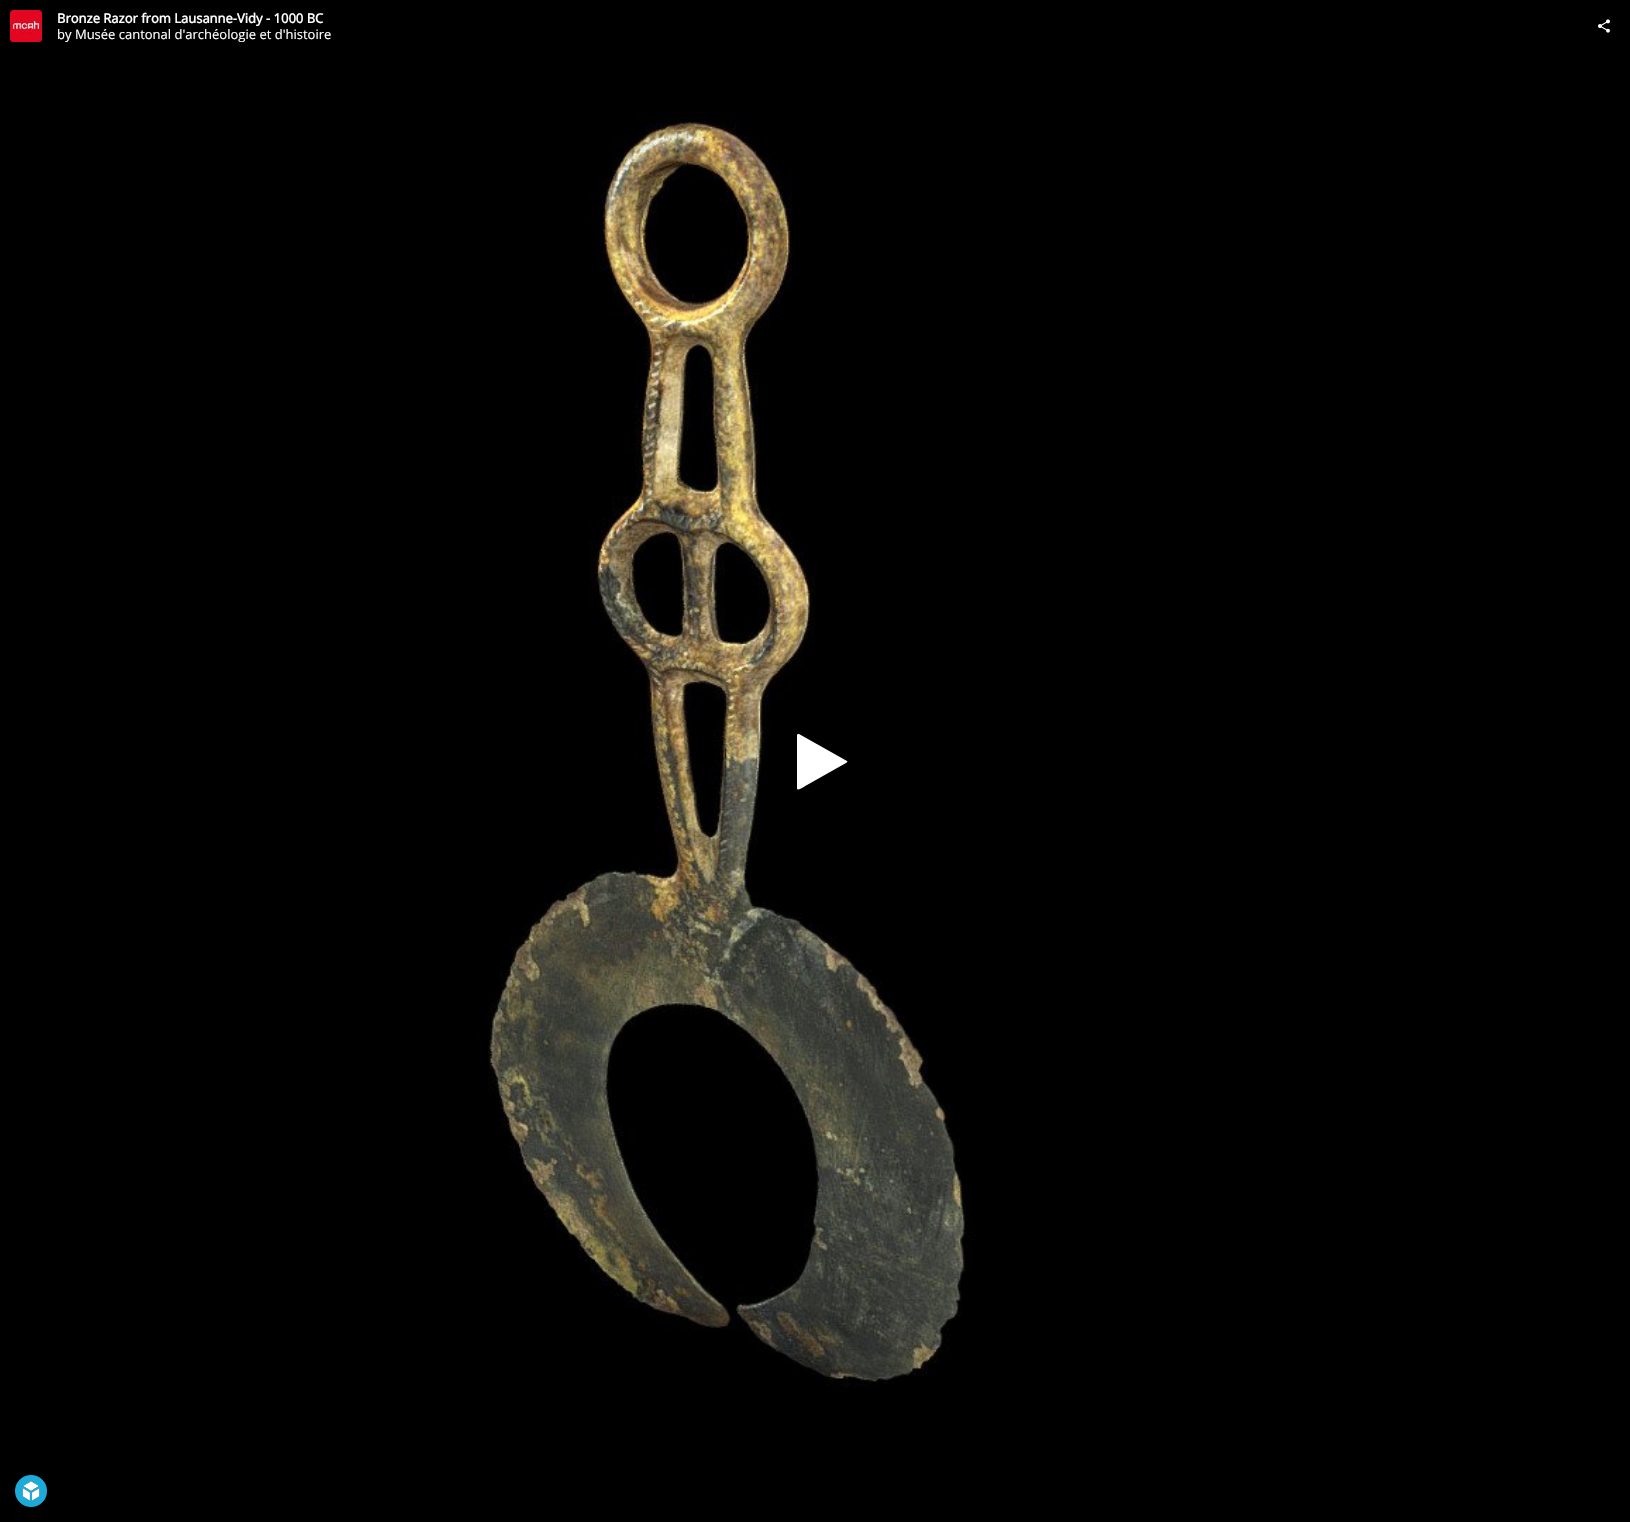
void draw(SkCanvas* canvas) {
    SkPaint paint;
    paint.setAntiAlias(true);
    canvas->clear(0xFFFFFFFF);
    canvas->drawImageRect(SkImages::DeferredFromEncodedData(SkData::MakeFromFileName("img1.png")), SkRect::MakeXYWH(0, 0, 1630, 1522), SkSamplingOptions());
    paint.setColor(0xB3000000);
    canvas->drawCircle(815, 761, 50, paint);
    paint.setColor(0xFFFFFFFF);
    canvas->drawPath(SkPathBuilder().moveTo(846, 763).lineTo(807, 785).cubicTo(806, 785, 799, 791, 797, 789).lineTo(797, 735).cubicTo(797, 734, 798, 734, 799, 734).lineTo(847, 761).cubicTo(848, 762, 847, 762, 846, 763).close().detach(), paint);
    canvas->drawImageRect(SkImages::DeferredFromEncodedData(SkData::MakeFromFileName("img2.png")), SkRect::MakeXYWH(15, 1475, 32, 32), SkSamplingOptions());
    canvas->drawImageRect(SkImages::DeferredFromEncodedData(SkData::MakeFromFileName("img3.png")), SkRect::MakeXYWH(10, 10, 32, 32), SkSamplingOptions());
    SkFont font1(fontMgr->matchFamilyStyle("Open Sans", SkFontStyle::Bold()), 13);
    font1.setSubpixel(true);
    canvas->drawString("Bronze Razor from Lausanne-Vidy - 1000 BC", 57, 23, font1, paint);
    SkFont font2(fontMgr->matchFamilyStyle("Open Sans", SkFontStyle::Normal()), 13);
    font2.setSubpixel(true);
    canvas->drawString("by Musée cantonal d'archéologie et d'histoire", 57, 39, font2, paint);
    canvas->drawImageRect(SkImages::DeferredFromEncodedData(SkData::MakeFromFileName("img4.png")), SkRect::MakeXYWH(1598, 19, 12, 14), SkSamplingOptions());
}
